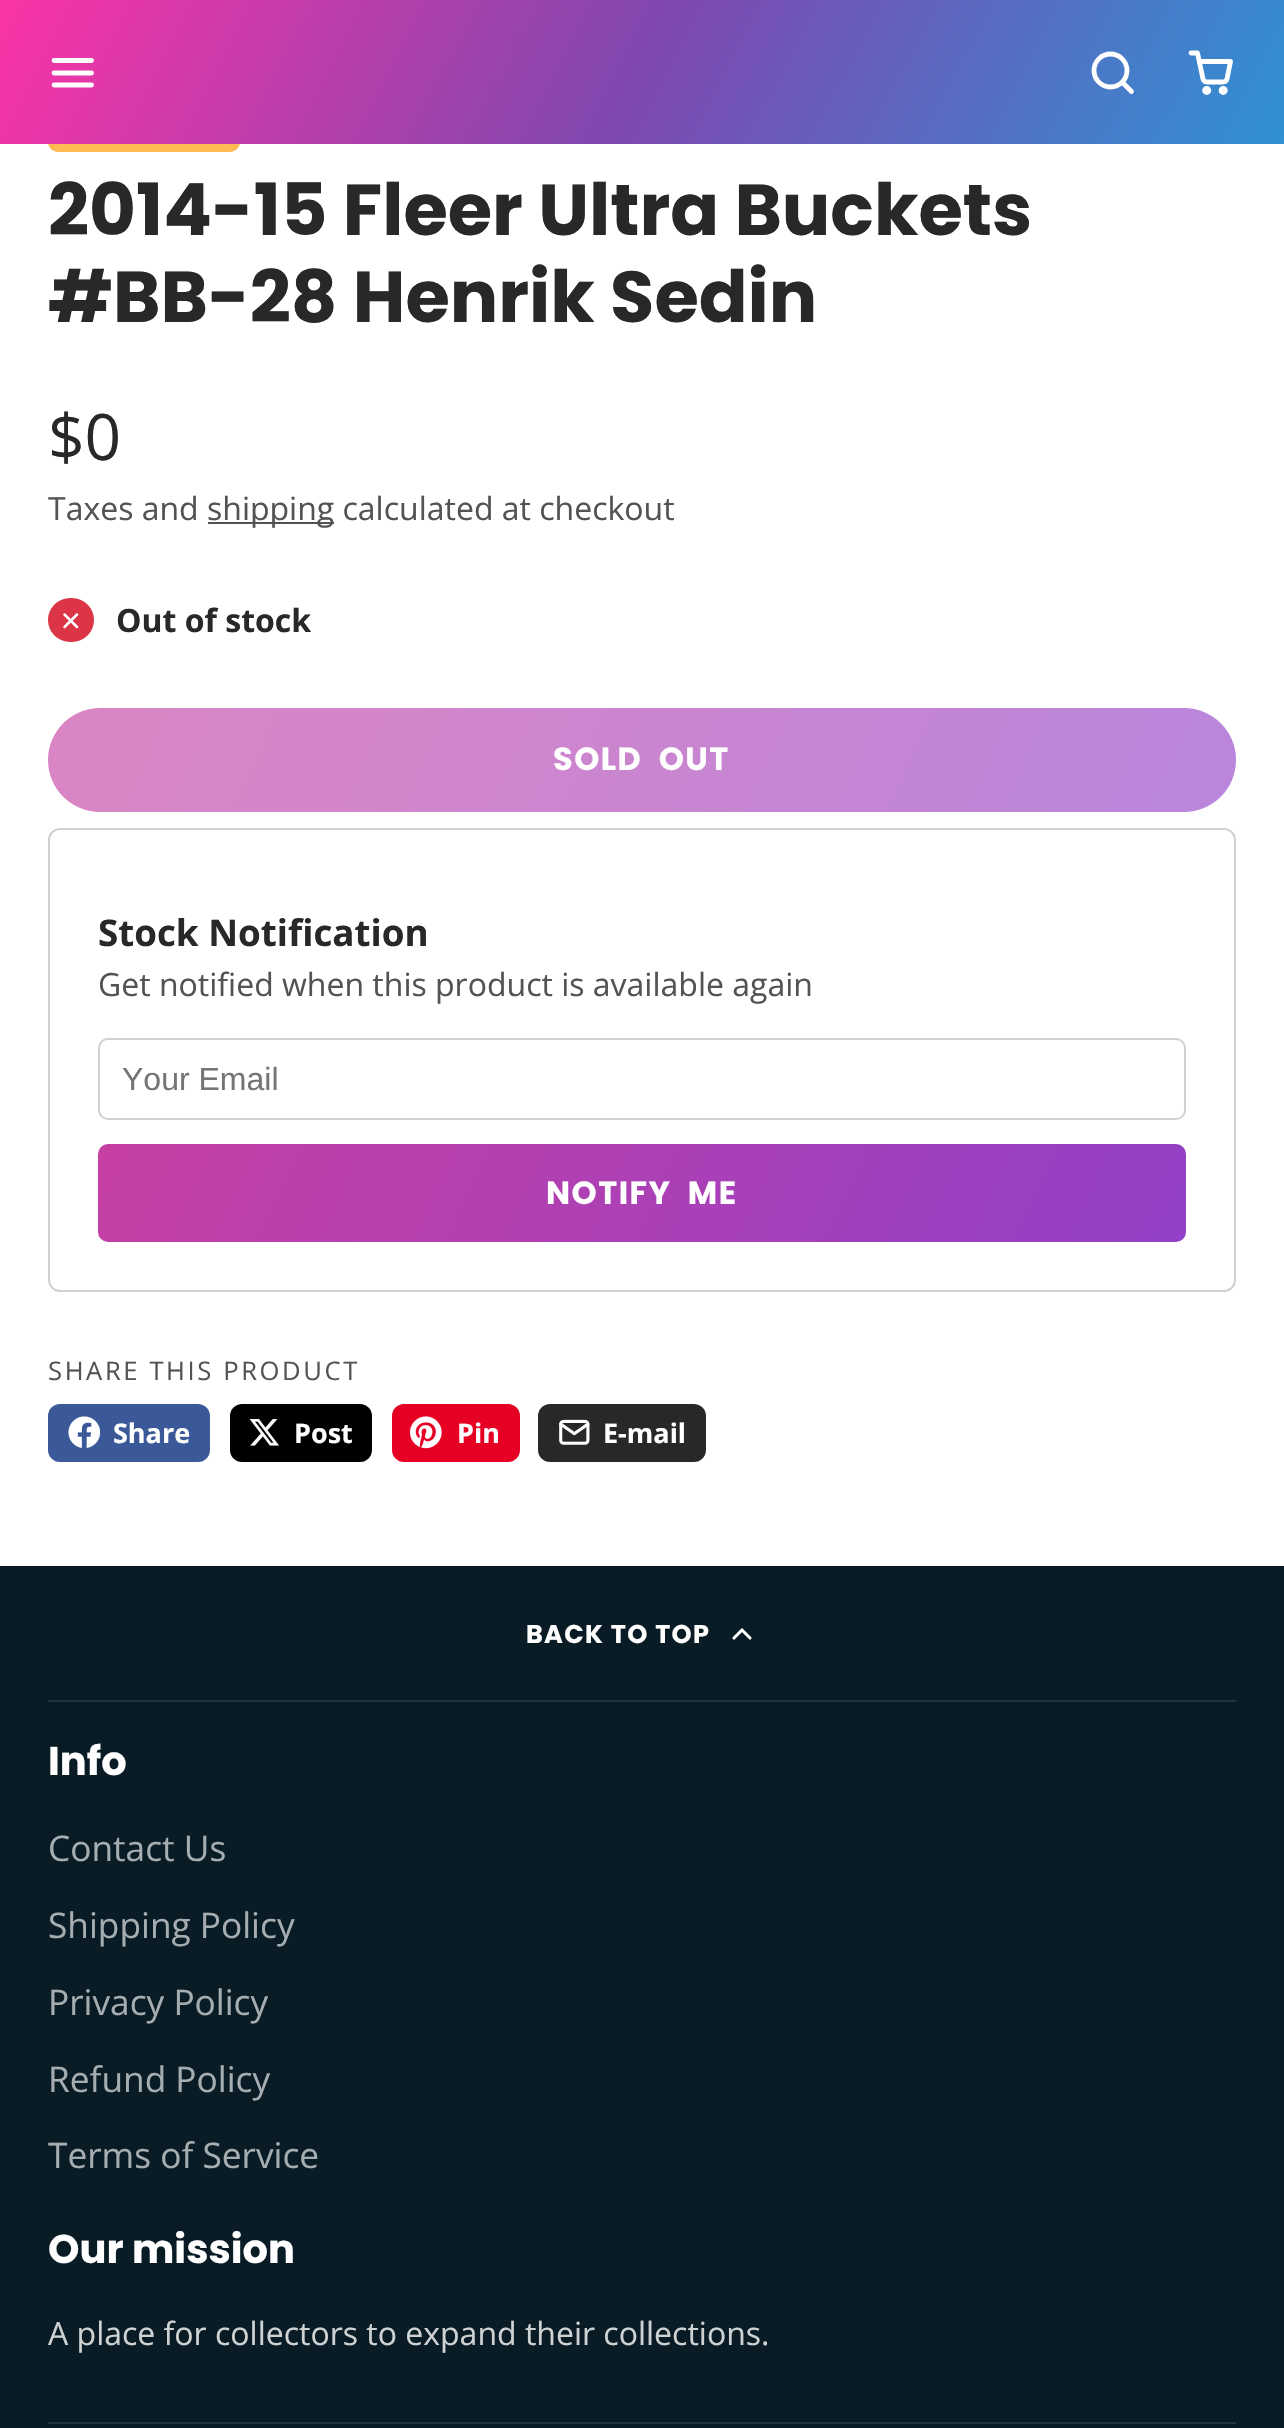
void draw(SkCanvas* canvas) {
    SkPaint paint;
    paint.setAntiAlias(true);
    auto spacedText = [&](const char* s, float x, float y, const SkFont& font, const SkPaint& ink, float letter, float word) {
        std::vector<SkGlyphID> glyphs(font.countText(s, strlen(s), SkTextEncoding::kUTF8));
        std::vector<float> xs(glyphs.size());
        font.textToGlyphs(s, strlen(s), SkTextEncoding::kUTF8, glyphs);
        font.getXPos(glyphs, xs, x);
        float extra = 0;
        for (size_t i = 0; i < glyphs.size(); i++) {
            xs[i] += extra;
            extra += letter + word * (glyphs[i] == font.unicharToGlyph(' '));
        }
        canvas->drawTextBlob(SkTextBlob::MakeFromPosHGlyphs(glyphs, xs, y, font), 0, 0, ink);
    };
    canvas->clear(0xFFFFFFFF);
    paint.setColor(0xFFFFBA53);
    canvas->drawRoundRect(SkRect::MakeXYWH(48, 100, 192, 52), 10, 10, paint);
    {
        const SkColor colors[] = {0xFFFB33A6, 0xFF7F48B0, 0xFF3091D3};
        const float stops[] = {0, 0.5f, 1};
        const SkPoint ends[] = {{103, -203}, {1181, 347}};
        paint.setShader(SkGradientShader::MakeLinear(ends, colors, stops, 3, SkTileMode::kClamp));
        paint.setAlpha(255);
    }
    canvas->drawRect(SkRect::MakeXYWH(0, 0, 1284, 144), paint);
    paint.setStyle(SkPaint::kStroke_Style);
    paint.setStrokeWidth(4.8f);
    paint.setStrokeCap(SkPaint::kRound_Cap);
    paint.setStrokeJoin(SkPaint::kRound_Join);
    paint.setShader(nullptr);
    paint.setColor(0xFFFFFFFF);
    canvas->drawPath(SkPathBuilder().moveTo(54, 73).lineTo(91.5f, 73).moveTo(54, 60.5f).lineTo(91.5f, 60.5f).moveTo(54, 85).lineTo(91.5f, 85).detach(), paint);
    paint.setStrokeCap(SkPaint::kButt_Cap);
    paint.setStrokeJoin(SkPaint::kMiter_Join);
    canvas->drawCircle(1110.5f, 70.5f, 16.5f, paint);
    paint.setStrokeCap(SkPaint::kRound_Cap);
    paint.setStrokeJoin(SkPaint::kRound_Join);
    canvas->drawPath(SkPathBuilder().moveTo(1131.5f, 91.5f).lineTo(1122.5f, 82.5f).detach(), paint);
    paint.setStrokeCap(SkPaint::kButt_Cap);
    paint.setStrokeJoin(SkPaint::kMiter_Join);
    canvas->drawCircle(1206.7f, 90.4f, 2.1f, paint);
    canvas->drawCircle(1223.2f, 90.4f, 2.1f, paint);
    paint.setStrokeCap(SkPaint::kRound_Cap);
    paint.setStrokeJoin(SkPaint::kRound_Join);
    canvas->drawPath(SkPathBuilder().moveTo(1191, 53).lineTo(1197.5f, 53).lineTo(1203, 79).cubicTo(1203.5f, 80.5f, 1205, 82, 1207, 82).lineTo(1223, 82).cubicTo(1225, 82, 1226.5f, 80.5f, 1227, 79).lineTo(1230.5f, 61.5f).lineTo(1200.5f, 61.5f).detach(), paint);
    SkFont font1(fontMgr->matchFamilyStyle("Poppins", SkFontStyle::Bold()), 72);
    font1.setSubpixel(true);
    paint.setStyle(SkPaint::kFill_Style);
    paint.setColor(0xFF282828);
    canvas->drawString("2014-15 Fleer Ultra Buckets", 48, 235, font1, paint);
    canvas->drawString("#BB-28 Henrik Sedin", 48, 322, font1, paint);
    SkFont font2(fontMgr->matchFamilyStyle("Open Sans", SkFontStyle::Normal()), 64);
    font2.setSubpixel(true);
    canvas->drawString("$0", 48, 460, font2, paint);
    SkFont font3(fontMgr->matchFamilyStyle("Open Sans", SkFontStyle::Normal()), 32);
    font3.setSubpixel(true);
    paint.setColor(0xFF535353);
    canvas->drawString("Taxes and", 48, 520, font3, paint);
    canvas->drawRect(SkRect::MakeXYWH(208, 522, 126, 2), paint);
    canvas->drawString("shipping calculated at checkout", 207, 520, font3, paint);
    paint.setColor(0xFFDC3545);
    canvas->drawRoundRect(SkRect::MakeXYWH(48, 598, 46, 44), 22, 22, paint);
    paint.setStyle(SkPaint::kStroke_Style);
    paint.setStrokeWidth(2.5f);
    paint.setColor(0xFFFFFFFF);
    canvas->drawPath(SkPathBuilder().moveTo(77, 614.5f).lineTo(64.5f, 627).moveTo(64.5f, 614.5f).lineTo(77, 627).detach(), paint);
    SkFont font4(fontMgr->matchFamilyStyle("Open Sans", SkFontStyle::Bold()), 32);
    font4.setSubpixel(true);
    paint.setStyle(SkPaint::kFill_Style);
    paint.setColor(0xFF282828);
    canvas->drawString("Out of stock", 116, 632, font4, paint);
    {
        const SkColor colors[] = {0xFFDB85C4, 0xFFB985DB};
        const float stops[] = {0, 1};
        const SkPoint ends[] = {{134, 523}, {1150, 997}};
        paint.setShader(SkGradientShader::MakeLinear(ends, colors, stops, 2, SkTileMode::kClamp));
        paint.setAlpha(255);
    }
    canvas->drawRoundRect(SkRect::MakeXYWH(48, 708, 1188, 104), 52, 52, paint);
    SkFont font5(fontMgr->matchFamilyStyle("Poppins", SkFontStyle::Bold()), 32);
    font5.setSubpixel(true);
    paint.setShader(nullptr);
    paint.setColor(0xFFFFFFFF);
    spacedText("SOLD OUT", 553, 770, font5, paint, 1.5f, 8);
    paint.setStyle(SkPaint::kStroke_Style);
    paint.setStrokeWidth(2);
    paint.setStrokeCap(SkPaint::kButt_Cap);
    paint.setStrokeJoin(SkPaint::kMiter_Join);
    paint.setColor(0xFFD1D1D1);
    canvas->drawRoundRect(SkRect::MakeXYWH(49, 829, 1186, 462), 11, 11, paint);
    SkFont font6(fontMgr->matchFamilyStyle("Open Sans", SkFontStyle::Bold()), 36.75f);
    font6.setSubpixel(true);
    paint.setStyle(SkPaint::kFill_Style);
    paint.setColor(0xFF282828);
    canvas->drawString("Stock Notification", 98, 946, font6, paint);
    paint.setColor(0xFF535353);
    canvas->drawString("Get notified when this product is available again", 98, 996, font3, paint);
    paint.setStyle(SkPaint::kStroke_Style);
    paint.setColor(0xFFD1D1D1);
    canvas->drawRoundRect(SkRect::MakeXYWH(99, 1039, 1086, 80), 9, 9, paint);
    SkFont font7(fontMgr->matchFamilyStyle("Liberation Sans", SkFontStyle::Normal()), 32);
    font7.setSubpixel(true);
    paint.setStyle(SkPaint::kFill_Style);
    paint.setColor(0xFF757575);
    canvas->drawString("Your Email", 122, 1090, font7, paint);
    {
        const SkColor colors[] = {0xFFC740A3, 0xFF9140C7};
        const float stops[] = {0, 1};
        const SkPoint ends[] = {{176, 976}, {1108, 1410}};
        paint.setShader(SkGradientShader::MakeLinear(ends, colors, stops, 2, SkTileMode::kClamp));
        paint.setAlpha(255);
    }
    canvas->drawRoundRect(SkRect::MakeXYWH(98, 1144, 1088, 98), 10, 10, paint);
    paint.setShader(nullptr);
    paint.setColor(0xFFFFFFFF);
    spacedText("NOTIFY ME", 546, 1204, font5, paint, 1.5f, 8);
    SkFont font8(fontMgr->matchFamilyStyle("Open Sans", SkFontStyle::Normal()), 25.6f);
    font8.setSubpixel(true);
    paint.setColor(0xFF535353);
    spacedText("SHARE THIS PRODUCT", 48, 1380, font8, paint, 2.6f, 0);
    paint.setColor(0xFF3B5998);
    canvas->drawRoundRect(SkRect::MakeXYWH(48, 1404, 162, 58), 12, 12, paint);
    canvas->drawImageRect(SkImages::DeferredFromEncodedData(SkData::MakeFromFileName("img1.png")), SkRect::MakeXYWH(68, 1416, 32, 32), SkSamplingOptions());
    SkFont font9(fontMgr->matchFamilyStyle("Open Sans", SkFontStyle::Bold()), 27);
    font9.setSubpixel(true);
    paint.setColor(0xFFFFFFFF);
    canvas->drawString("Share", 113, 1443, font9, paint);
    paint.setColor(0xFF000000);
    canvas->drawRoundRect(SkRect::MakeXYWH(230, 1404, 142, 58), 12, 12, paint);
    canvas->drawImageRect(SkImages::DeferredFromEncodedData(SkData::MakeFromFileName("img2.png")), SkRect::MakeXYWH(249, 1419, 30, 27), SkSamplingOptions());
    paint.setColor(0xFFFFFFFF);
    canvas->drawString("Post", 294, 1443, font9, paint);
    paint.setColor(0xFFE60023);
    canvas->drawRoundRect(SkRect::MakeXYWH(392, 1404, 128, 58), 12, 12, paint);
    canvas->drawImageRect(SkImages::DeferredFromEncodedData(SkData::MakeFromFileName("img3.png")), SkRect::MakeXYWH(410, 1416, 32, 33), SkSamplingOptions());
    paint.setColor(0xFFFFFFFF);
    canvas->drawString("Pin", 457, 1443, font9, paint);
    paint.setColor(0xFF282828);
    canvas->drawRoundRect(SkRect::MakeXYWH(538, 1404, 168, 58), 12, 12, paint);
    canvas->drawImageRect(SkImages::DeferredFromEncodedData(SkData::MakeFromFileName("img4.png")), SkRect::MakeXYWH(559, 1419, 31, 26), SkSamplingOptions());
    paint.setColor(0xFFFFFFFF);
    canvas->drawString("E-mail", 603, 1443, font9, paint);
    paint.setColor(0xFF091C25);
    canvas->drawRect(SkRect::MakeXYWH(0, 1566, 1284, 862), paint);
    SkFont font10(fontMgr->matchFamilyStyle("Poppins", SkFontStyle::Bold()), 25.6f);
    font10.setSubpixel(true);
    paint.setColor(0xFFFFFFFF);
    spacedText("BACK TO TOP", 526, 1643, font10, paint, 1.25f, 0);
    paint.setStyle(SkPaint::kStroke_Style);
    paint.setStrokeWidth(3.1f);
    paint.setStrokeCap(SkPaint::kRound_Cap);
    paint.setStrokeJoin(SkPaint::kRound_Join);
    canvas->drawPath(SkPathBuilder().moveTo(750, 1638).lineTo(742, 1630).lineTo(734, 1638).detach(), paint);
    paint.setStyle(SkPaint::kFill_Style);
    paint.setColor(0xFF22333B);
    canvas->drawRect(SkRect::MakeXYWH(48, 1700, 1188, 2), paint);
    SkFont font11(fontMgr->matchFamilyStyle("Poppins", SkFontStyle::Bold()), 40);
    font11.setSubpixel(true);
    paint.setColor(0xFFFFFFFF);
    canvas->drawString("Info", 48, 1775, font11, paint);
    SkFont font12(fontMgr->matchFamilyStyle("Open Sans", SkFontStyle::Normal()), 35.25f);
    font12.setSubpixel(true);
    paint.setColor(0xFFA6ADB1);
    canvas->drawString("Contact Us", 48, 1861, font12, paint);
    canvas->drawString("Shipping Policy", 48, 1938, font12, paint);
    canvas->drawString("Privacy Policy", 48, 2015, font12, paint);
    canvas->drawString("Refund Policy", 48, 2092, font12, paint);
    canvas->drawString("Terms of Service", 48, 2168, font12, paint);
    paint.setColor(0xFFFFFFFF);
    canvas->drawString("Our mission", 48, 2263, font11, paint);
    paint.setColor(0xFFCED2D3);
    canvas->drawString("A place for collectors to expand their collections.", 48, 2345, font3, paint);
    paint.setColor(0xFF22333B);
    canvas->drawRect(SkRect::MakeXYWH(48, 2422, 1188, 2), paint);
}
